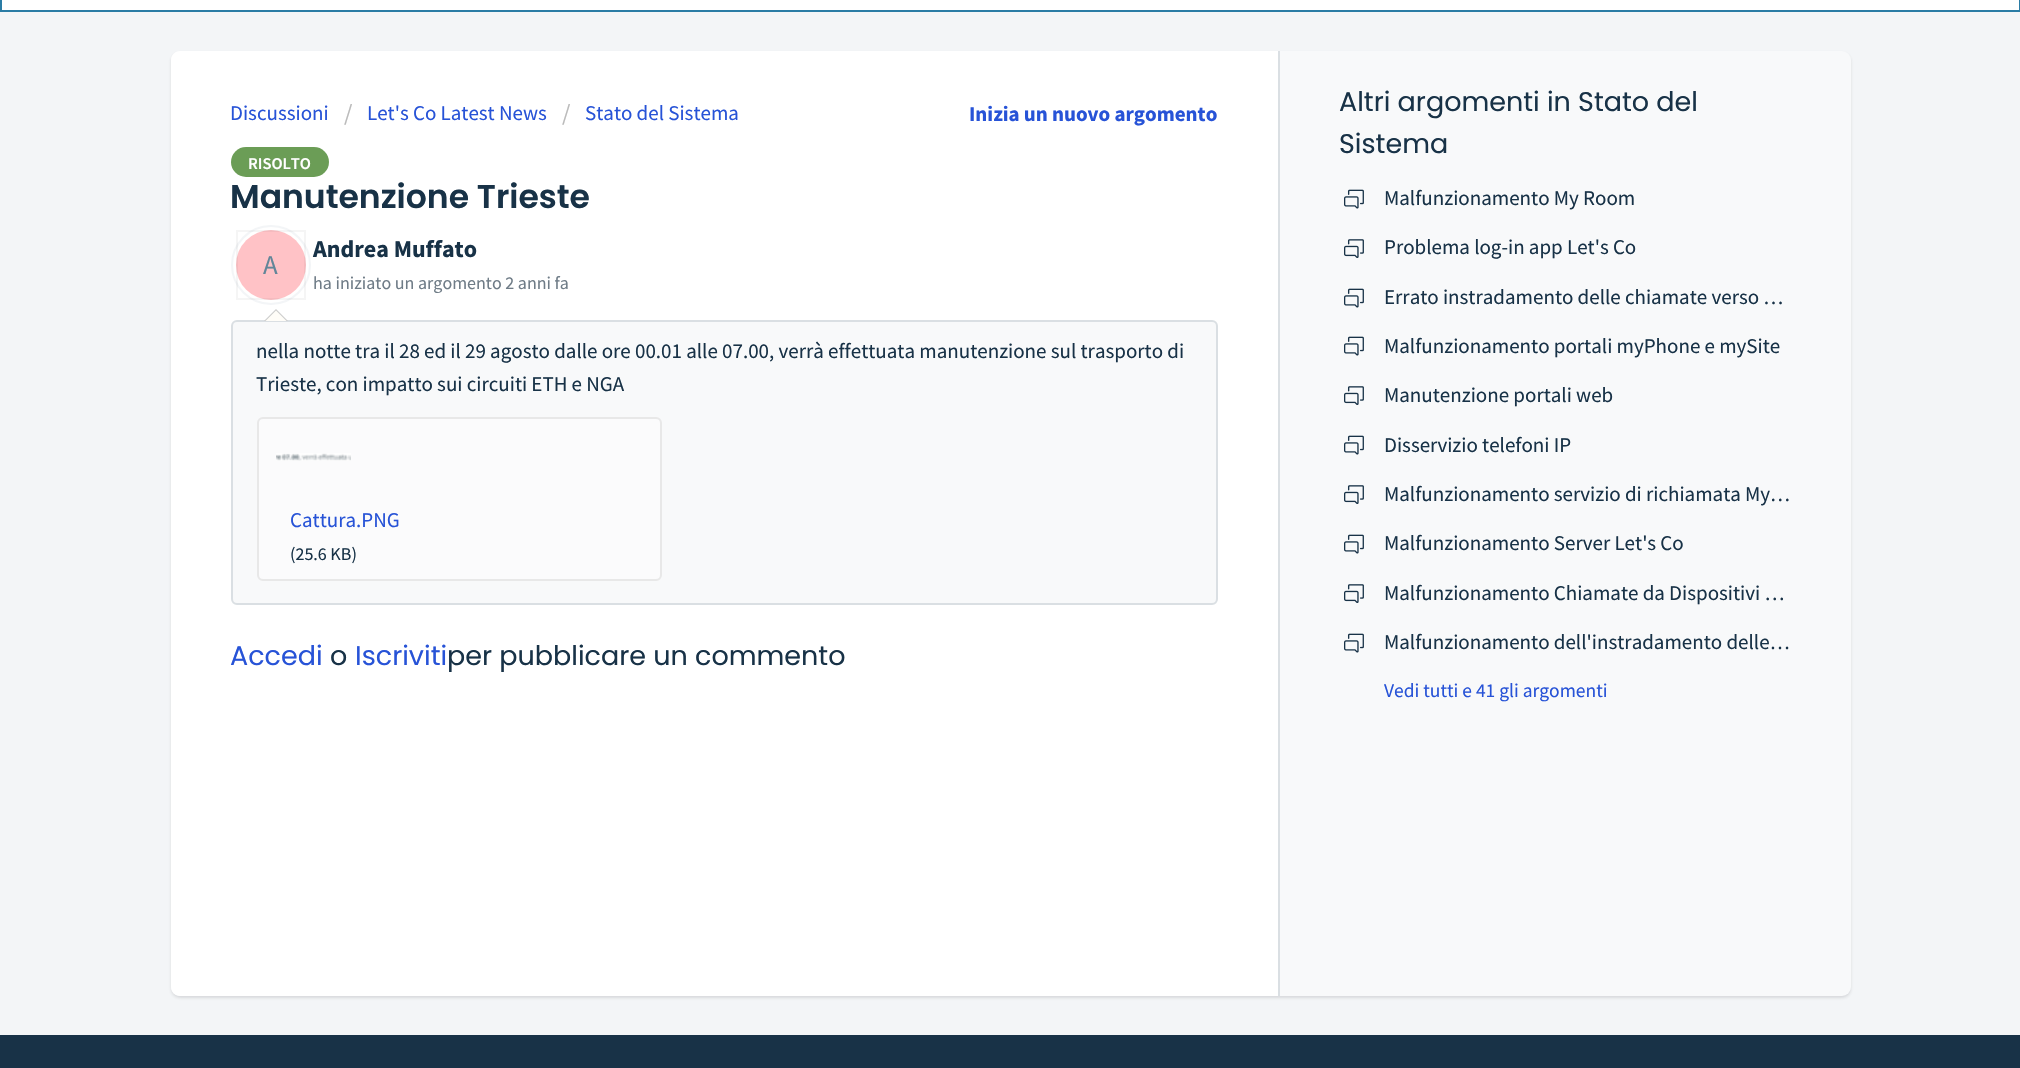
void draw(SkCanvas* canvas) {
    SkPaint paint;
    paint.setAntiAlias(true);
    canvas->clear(0xFFF3F5F7);
    paint.setColor(0xFFFFFFFF);
    canvas->drawRect(SkRect::MakeXYWH(1, -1, 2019, 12), paint);
    paint.setStyle(SkPaint::kStroke_Style);
    paint.setStrokeWidth(2);
    paint.setColor(0xFF2A7CA5);
    canvas->drawRect(SkRect::MakeXYWH(1, -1, 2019, 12), paint);
    paint.setStyle(SkPaint::kFill_Style);
    paint.setColor(0x263F3F44);
    paint.setMaskFilter(SkMaskFilter::MakeBlur(kNormal_SkBlurStyle, 1.5f));
    canvas->drawRoundRect(SkRect::MakeXYWH(171, 53, 1680, 945), 9, 9, paint);
    paint.setMaskFilter(nullptr);
    paint.setColor(0xFFF8F9FA);
    canvas->drawRoundRect(SkRect::MakeXYWH(171, 51, 1680, 945), 9, 9, paint);
    paint.setColor(0xFFFFFFFF);
    canvas->drawPath(SkPathBuilder().moveTo(180, 51).lineTo(1280, 51).lineTo(1280, 996).lineTo(180, 996).cubicTo(175, 996, 171, 992, 171, 987).lineTo(171, 60).cubicTo(171, 55, 175, 51, 180, 51).close().detach(), paint);
    paint.setColor(0xFFDADFE3);
    canvas->drawRect(SkRect::MakeXYWH(1278, 51, 2, 945), paint);
    SkFont font1(fontMgr->matchFamilyStyle("Source Sans Pro", SkFontStyle::Normal()), 21);
    font1.setSubpixel(true);
    paint.setColor(0xFF2753D7);
    canvas->drawString("Discussioni", 230, 120, font1, paint);
    SkFont font2(fontMgr->matchFamilyStyle("Source Sans Pro", SkFontStyle::Normal()), 24);
    font2.setSubpixel(true);
    paint.setColor(0xFFBBBBBB);
    canvas->drawString("/", 344, 121, font2, paint);
    paint.setColor(0xFF2753D7);
    canvas->drawString("Let's Co Latest News", 367, 120, font1, paint);
    paint.setColor(0xFFBBBBBB);
    canvas->drawString("/", 562, 121, font2, paint);
    paint.setColor(0xFF2753D7);
    canvas->drawString("Stato del Sistema", 585, 120, font1, paint);
    SkFont font3(fontMgr->matchFamilyStyle("Source Sans Pro", SkFontStyle::Bold()), 21);
    font3.setSubpixel(true);
    canvas->drawString("Inizia un nuovo argomento", 969, 121, font3, paint);
    paint.setColor(0xFF6B9D56);
    canvas->drawRoundRect(SkRect::MakeXYWH(231, 147, 98, 30), 15, 15, paint);
    SkFont font4(fontMgr->matchFamilyStyle("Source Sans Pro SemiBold", SkFontStyle(600, SkFontStyle::kNormal_Width, SkFontStyle::kUpright_Slant)), 16.5f);
    font4.setSubpixel(true);
    paint.setColor(0xFFFFFFFF);
    canvas->drawString("RISOLTO", 248, 169, font4, paint);
    SkFont font5(fontMgr->matchFamilyStyle("Poppins", SkFontStyle(600, SkFontStyle::kNormal_Width, SkFontStyle::kUpright_Slant)), 33);
    font5.setSubpixel(true);
    paint.setColor(0xFF183247);
    canvas->drawString("Manutenzione Trieste", 230, 208, font5, paint);
    paint.setStyle(SkPaint::kStroke_Style);
    paint.setColor(0xFFF3F5F7);
    canvas->drawCircle(271, 265, 39, paint);
    paint.setStyle(SkPaint::kFill_Style);
    paint.setColor(0xFFFFC2C6);
    canvas->drawCircle(271, 265, 35, paint);
    paint.setStyle(SkPaint::kStroke_Style);
    paint.setColor(0x0A000000);
    canvas->drawRect(SkRect::MakeXYWH(237, 231, 68, 68), paint);
    SkFont font6(fontMgr->matchFamilyStyle("Source Sans Pro", SkFontStyle::Normal()), 27);
    font6.setSubpixel(true);
    paint.setStyle(SkPaint::kFill_Style);
    paint.setColor(0xFF638699);
    canvas->drawString("A", 263, 274, font6, paint);
    paint.setColor(0xFFF8F9FA);
    canvas->drawRoundRect(SkRect::MakeXYWH(232, 321, 985, 283), 5, 5, paint);
    paint.setStyle(SkPaint::kStroke_Style);
    paint.setColor(0xFFDADFE3);
    canvas->drawRoundRect(SkRect::MakeXYWH(232, 321, 985, 283), 5, 5, paint);
    paint.setStyle(SkPaint::kFill_Style);
    paint.setColor(0xFFCCCCCC);
    canvas->drawPath(SkPathBuilder().moveTo(288, 321).lineTo(264, 321).lineTo(276, 309).close().detach(), paint);
    paint.setColor(0xFFFFFDF8);
    canvas->drawPath(SkPathBuilder().moveTo(286.5f, 321).lineTo(265.5f, 321).lineTo(276, 310.5f).close().detach(), paint);
    SkFont font7(fontMgr->matchFamilyStyle("Source Sans Pro", SkFontStyle::Bold()), 24);
    font7.setSubpixel(true);
    paint.setColor(0xFF183247);
    canvas->drawString("Andrea Muffato", 313, 257, font7, paint);
    SkFont font8(fontMgr->matchFamilyStyle("Source Sans Pro", SkFontStyle::Normal()), 18);
    font8.setSubpixel(true);
    paint.setColor(0xFF6F7C87);
    canvas->drawString("ha iniziato un argomento 2 anni fa", 313, 289, font8, paint);
    paint.setColor(0xFF183247);
    canvas->drawString("nella notte tra il 28 ed il 29 agosto dalle ore 00.01 alle 07.00, verrà effettuata manutenzione sul trasporto di", 256, 358, font1, paint);
    canvas->drawString("Trieste, con impatto sui circuiti ETH e NGA", 256, 391, font1, paint);
    paint.setColor(0xFFFBFBFC);
    canvas->drawRoundRect(SkRect::MakeXYWH(258, 418, 403, 162), 5, 5, paint);
    paint.setStyle(SkPaint::kStroke_Style);
    paint.setColor(0xFFE8E8E8);
    canvas->drawRoundRect(SkRect::MakeXYWH(258, 418, 403, 162), 5, 5, paint);
    canvas->drawImageRect(SkImages::DeferredFromEncodedData(SkData::MakeFromFileName("img1.png")), SkRect::MakeXYWH(276, 453, 75, 8), SkSamplingOptions());
    paint.setStyle(SkPaint::kFill_Style);
    paint.setColor(0xFF2753D7);
    canvas->drawString("Cattura.PNG", 290, 527, font1, paint);
    paint.setColor(0xFF183247);
    canvas->drawString("(25.6 KB)", 290, 560, font8, paint);
    SkFont font9(fontMgr->matchFamilyStyle("Poppins", SkFontStyle::Normal()), 27);
    font9.setSubpixel(true);
    paint.setColor(0xFF2753D7);
    canvas->drawString("Accedi", 230, 665, font9, paint);
    paint.setColor(0xFF183247);
    canvas->drawString("o", 330, 665, font9, paint);
    paint.setColor(0xFF2753D7);
    canvas->drawString("Iscriviti", 355, 665, font9, paint);
    paint.setColor(0xFF183247);
    canvas->drawString("per pubblicare un commento", 447, 665, font9, paint);
    canvas->drawString("Altri argomenti in Stato del", 1339, 111, font9, paint);
    canvas->drawString("Sistema", 1339, 153, font9, paint);
    canvas->drawImageRect(SkImages::DeferredFromEncodedData(SkData::MakeFromFileName("img2.png")), SkRect::MakeXYWH(1344, 189, 20, 20), SkSamplingOptions());
    canvas->drawString("Malfunzionamento My Room", 1384, 205, font1, paint);
    canvas->drawImageRect(SkImages::DeferredFromEncodedData(SkData::MakeFromFileName("img3.png")), SkRect::MakeXYWH(1344, 239, 20, 19), SkSamplingOptions());
    canvas->drawString("Problema log-in app Let's Co", 1384, 254, font1, paint);
    canvas->drawImageRect(SkImages::DeferredFromEncodedData(SkData::MakeFromFileName("img2.png")), SkRect::MakeXYWH(1344, 288, 20, 20), SkSamplingOptions());
    canvas->drawString("Errato instradamento delle chiamate verso …", 1384, 304, font1, paint);
    canvas->drawImageRect(SkImages::DeferredFromEncodedData(SkData::MakeFromFileName("img2.png")), SkRect::MakeXYWH(1344, 336, 20, 20), SkSamplingOptions());
    canvas->drawString("Malfunzionamento portali myPhone e mySite", 1384, 353, font1, paint);
    canvas->drawImageRect(SkImages::DeferredFromEncodedData(SkData::MakeFromFileName("img3.png")), SkRect::MakeXYWH(1344, 386, 20, 19), SkSamplingOptions());
    canvas->drawString("Manutenzione portali web", 1384, 402, font1, paint);
    canvas->drawImageRect(SkImages::DeferredFromEncodedData(SkData::MakeFromFileName("img2.png")), SkRect::MakeXYWH(1344, 435, 20, 20), SkSamplingOptions());
    canvas->drawString("Disservizio telefoni IP", 1384, 452, font1, paint);
    canvas->drawImageRect(SkImages::DeferredFromEncodedData(SkData::MakeFromFileName("img3.png")), SkRect::MakeXYWH(1344, 485, 20, 19), SkSamplingOptions());
    canvas->drawString("Malfunzionamento servizio di richiamata My…", 1384, 501, font1, paint);
    canvas->drawImageRect(SkImages::DeferredFromEncodedData(SkData::MakeFromFileName("img2.png")), SkRect::MakeXYWH(1344, 534, 20, 20), SkSamplingOptions());
    canvas->drawString("Malfunzionamento Server Let's Co", 1384, 550, font1, paint);
    canvas->drawImageRect(SkImages::DeferredFromEncodedData(SkData::MakeFromFileName("img3.png")), SkRect::MakeXYWH(1344, 584, 20, 19), SkSamplingOptions());
    canvas->drawString("Malfunzionamento Chiamate da Dispositivi …", 1384, 600, font1, paint);
    canvas->drawImageRect(SkImages::DeferredFromEncodedData(SkData::MakeFromFileName("img2.png")), SkRect::MakeXYWH(1344, 633, 20, 20), SkSamplingOptions());
    canvas->drawString("Malfunzionamento dell'instradamento delle…", 1384, 649, font1, paint);
    SkFont font10(fontMgr->matchFamilyStyle("Source Sans Pro", SkFontStyle::Normal()), 19.5f);
    font10.setSubpixel(true);
    paint.setColor(0xFF2753D7);
    canvas->drawString("Vedi tutti e 41 gli argomenti", 1384, 697, font10, paint);
    paint.setColor(0xFF183247);
    canvas->drawRect(SkRect::MakeXYWH(0, 1035, 2020, 33), paint);
}
